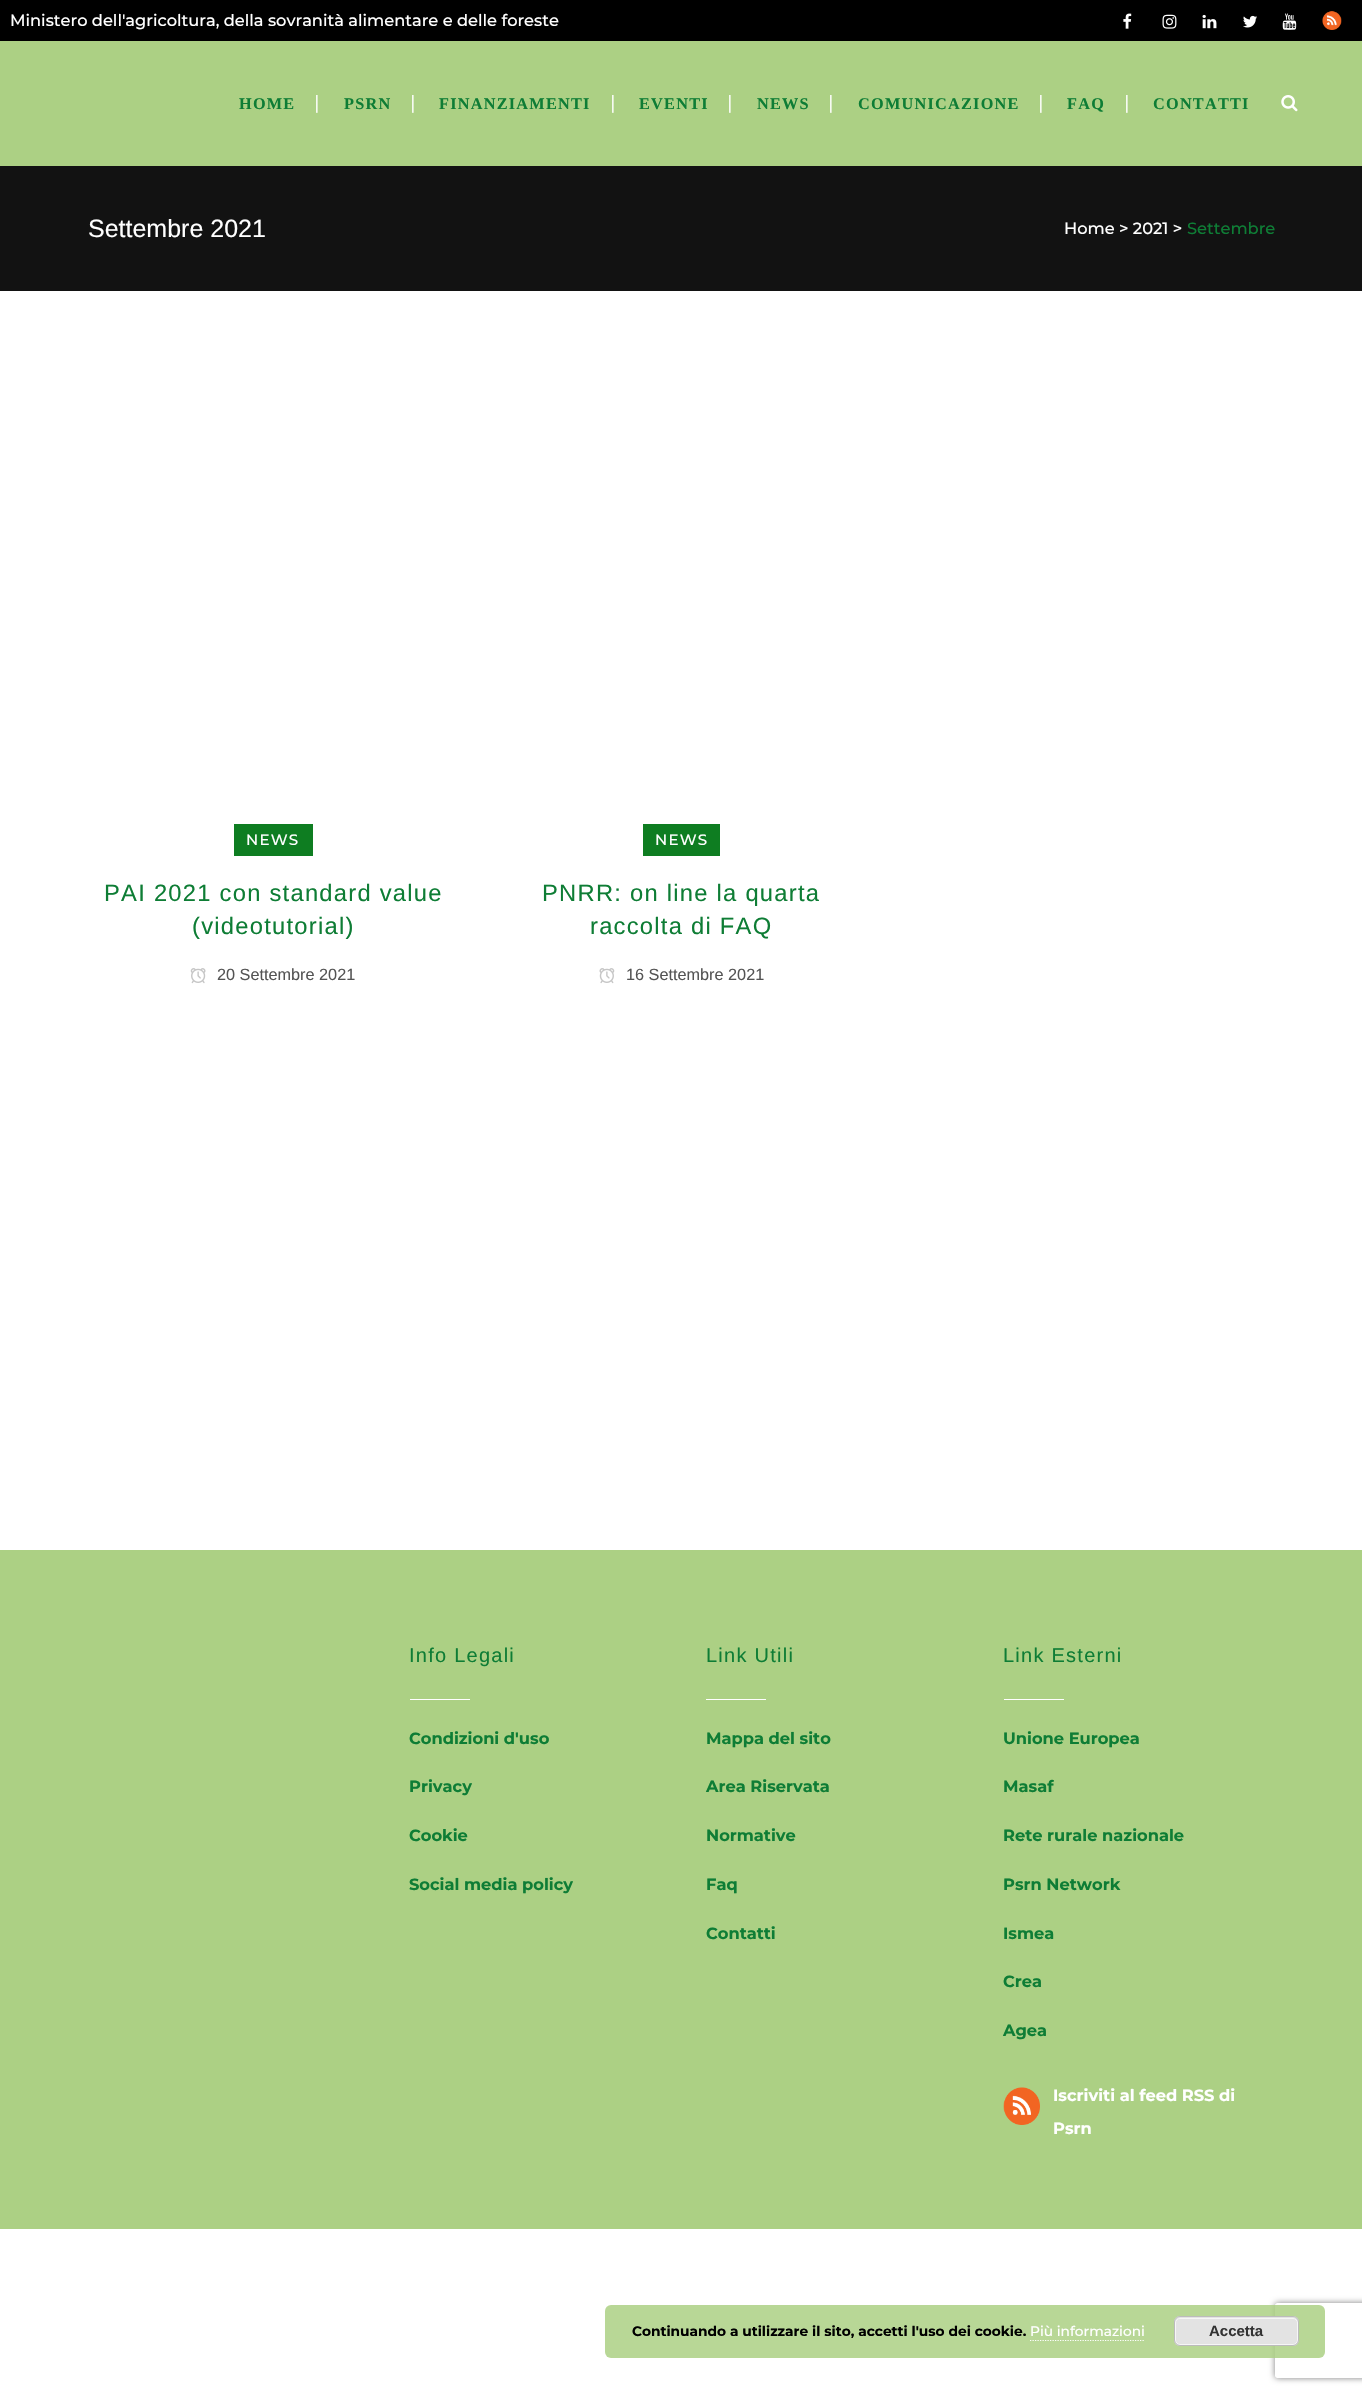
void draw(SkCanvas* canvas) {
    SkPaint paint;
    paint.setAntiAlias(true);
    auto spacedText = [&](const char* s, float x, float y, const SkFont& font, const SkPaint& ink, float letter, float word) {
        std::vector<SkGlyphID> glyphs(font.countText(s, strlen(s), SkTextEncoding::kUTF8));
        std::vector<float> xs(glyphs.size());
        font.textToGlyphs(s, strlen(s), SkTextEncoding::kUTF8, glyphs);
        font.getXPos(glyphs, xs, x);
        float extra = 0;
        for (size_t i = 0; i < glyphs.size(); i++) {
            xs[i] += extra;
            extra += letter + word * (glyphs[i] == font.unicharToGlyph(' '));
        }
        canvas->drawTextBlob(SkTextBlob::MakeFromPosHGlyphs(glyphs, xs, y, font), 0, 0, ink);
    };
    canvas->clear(0xFFFFFFFF);
    paint.setColor(0xFF000000);
    canvas->drawRect(SkRect::MakeXYWH(0, 0, 1362, 41), paint);
    SkFont font1(fontMgr->matchFamilyStyle("Montserrat", SkFontStyle(500, SkFontStyle::kNormal_Width, SkFontStyle::kUpright_Slant)), 16.25f);
    font1.setSubpixel(true);
    paint.setColor(0xFFFFFFFF);
    canvas->drawString("Ministero dell'agricoltura, della sovranità alimentare e delle foreste", 10, 26, font1, paint);
    canvas->drawImageRect(SkImages::DeferredFromEncodedData(SkData::MakeFromFileName("img1.png")), SkRect::MakeXYWH(1123, 13, 9, 16), SkSamplingOptions());
    canvas->drawImageRect(SkImages::DeferredFromEncodedData(SkData::MakeFromFileName("img2.png")), SkRect::MakeXYWH(1162, 14, 15, 15), SkSamplingOptions());
    canvas->drawImageRect(SkImages::DeferredFromEncodedData(SkData::MakeFromFileName("img3.png")), SkRect::MakeXYWH(1202, 14, 15, 15), SkSamplingOptions());
    canvas->drawImageRect(SkImages::DeferredFromEncodedData(SkData::MakeFromFileName("img4.png")), SkRect::MakeXYWH(1243, 15, 14, 13), SkSamplingOptions());
    canvas->drawImageRect(SkImages::DeferredFromEncodedData(SkData::MakeFromFileName("img5.png")), SkRect::MakeXYWH(1282, 13, 15, 17), SkSamplingOptions());
    canvas->drawImageRect(SkImages::DeferredFromEncodedData(SkData::MakeFromFileName("img6.png")), SkRect::MakeXYWH(1322, 11, 20, 19), SkSamplingOptions());
    paint.setColor(0xFFACD084);
    canvas->drawRect(SkRect::MakeXYWH(0, 41, 1362, 125), paint);
    SkFont font2(fontMgr->matchFamilyStyle("Liberation Serif", SkFontStyle::Bold()), 16.25f);
    font2.setSubpixel(true);
    paint.setColor(0xFF0E7D35);
    spacedText("HOME", 239, 109, font2, paint, 1.25f, 0);
    SkFont font3(fontMgr->matchFamilyStyle("Montserrat", SkFontStyle::Normal()), 19);
    font3.setSubpixel(true);
    paint.setColor(0xFFFFFFFF);
    canvas->drawString("|", 314, 109, font3, paint);
    paint.setColor(0xFF0E7D35);
    spacedText("PSRN", 344, 109, font2, paint, 1.25f, 0);
    paint.setColor(0xFFFFFFFF);
    canvas->drawString("|", 410, 109, font3, paint);
    paint.setColor(0xFF0E7D35);
    spacedText("FINANZIAMENTI", 439, 109, font2, paint, 1.25f, 0);
    paint.setColor(0xFFFFFFFF);
    canvas->drawString("|", 610, 109, font3, paint);
    paint.setColor(0xFF0E7D35);
    spacedText("EVENTI", 639, 109, font2, paint, 1.25f, 0);
    paint.setColor(0xFFFFFFFF);
    canvas->drawString("|", 727, 109, font3, paint);
    paint.setColor(0xFF0E7D35);
    spacedText("NEWS", 757, 109, font2, paint, 1.25f, 0);
    paint.setColor(0xFFFFFFFF);
    canvas->drawString("|", 828, 109, font3, paint);
    paint.setColor(0xFF0E7D35);
    spacedText("COMUNICAZIONE", 858, 109, font2, paint, 1.25f, 0);
    paint.setColor(0xFFFFFFFF);
    canvas->drawString("|", 1038, 109, font3, paint);
    paint.setColor(0xFF0E7D35);
    spacedText("FAQ", 1067, 109, font2, paint, 1.25f, 0);
    paint.setColor(0xFFFFFFFF);
    canvas->drawString("|", 1124, 109, font3, paint);
    paint.setColor(0xFF0E7D35);
    spacedText("CONTATTI", 1153, 109, font2, paint, 1.25f, 0);
    canvas->drawImageRect(SkImages::DeferredFromEncodedData(SkData::MakeFromFileName("img7.png")), SkRect::MakeXYWH(1281, 95, 17, 17), SkSamplingOptions());
    paint.setColor(0xFF121212);
    canvas->drawRect(SkRect::MakeXYWH(0, 166, 1362, 125), paint);
    SkFont font4(fontMgr->matchFamilyStyle("Liberation Sans", SkFontStyle::Normal()), 25);
    font4.setSubpixel(true);
    paint.setColor(0xFFFFFFFF);
    canvas->drawString("Settembre 2021", 88, 237, font4, paint);
    canvas->drawString("Home > 2021 >", 1064, 234, font1, paint);
    paint.setColor(0xFF0E7D35);
    canvas->drawString("Settembre", 1187, 234, font1, paint);
    paint.setColor(0xFF0E7D21);
    canvas->drawRect(SkRect::MakeXYWH(234, 824, 79, 32), paint);
    SkFont font5(fontMgr->matchFamilyStyle("Montserrat", SkFontStyle(500, SkFontStyle::kNormal_Width, SkFontStyle::kUpright_Slant)), 15);
    font5.setSubpixel(true);
    paint.setColor(0xFFFFFFFF);
    spacedText("NEWS", 246, 845, font5, paint, 1.25f, 0);
    SkFont font6(fontMgr->matchFamilyStyle("Liberation Sans", SkFontStyle::Normal()), 23.75f);
    font6.setSubpixel(true);
    paint.setColor(0xFF0E7D35);
    spacedText("PAI 2021 con standard value", 104, 901, font6, paint, 1.25f, 0);
    spacedText("(videotutorial)", 192, 934, font6, paint, 1.25f, 0);
    canvas->drawImageRect(SkImages::DeferredFromEncodedData(SkData::MakeFromFileName("img8.png")), SkRect::MakeXYWH(190, 968, 16, 16), SkSamplingOptions());
    SkFont font7(fontMgr->matchFamilyStyle("Liberation Sans", SkFontStyle::Normal()), 16.25f);
    font7.setSubpixel(true);
    paint.setColor(0xFF545454);
    canvas->drawString("20 Settembre 2021", 217, 980, font7, paint);
    paint.setColor(0xFF0E7D21);
    canvas->drawRect(SkRect::MakeXYWH(643, 824, 77, 32), paint);
    paint.setColor(0xFFFFFFFF);
    spacedText("NEWS", 655, 845, font5, paint, 1.25f, 0);
    paint.setColor(0xFF0E7D35);
    spacedText("PNRR: on line la quarta", 542, 901, font6, paint, 1.25f, 0);
    spacedText("raccolta di FAQ", 590, 934, font6, paint, 1.25f, 0);
    canvas->drawImageRect(SkImages::DeferredFromEncodedData(SkData::MakeFromFileName("img9.png")), SkRect::MakeXYWH(599, 968, 16, 16), SkSamplingOptions());
    paint.setColor(0xFF545454);
    canvas->drawString("16 Settembre 2021", 626, 980, font7, paint);
    paint.setColor(0xFFACD084);
    canvas->drawRect(SkRect::MakeXYWH(0, 1550, 1362, 679), paint);
    SkFont font8(fontMgr->matchFamilyStyle("Liberation Sans", SkFontStyle::Normal()), 20);
    font8.setSubpixel(true);
    paint.setColor(0xFF0E7D35);
    spacedText("Info Legali", 409, 1662, font8, paint, 1.25f, 0);
    paint.setColor(0xFFFFFFFF);
    canvas->drawRect(SkRect::MakeXYWH(410, 1699, 60, 1), paint);
    SkFont font9(fontMgr->matchFamilyStyle("Montserrat", SkFontStyle::Bold()), 16.25f);
    font9.setSubpixel(true);
    paint.setColor(0xFF0E7D35);
    canvas->drawString("Condizioni d'uso", 409, 1744, font9, paint);
    canvas->drawString("Privacy", 409, 1792, font9, paint);
    canvas->drawString("Cookie", 409, 1841, font9, paint);
    canvas->drawString("Social media policy", 409, 1890, font9, paint);
    spacedText("Link Utili", 706, 1662, font8, paint, 1.25f, 0);
    paint.setColor(0xFFFFFFFF);
    canvas->drawRect(SkRect::MakeXYWH(706, 1699, 60, 1), paint);
    paint.setColor(0xFF0E7D35);
    canvas->drawString("Mappa del sito", 706, 1744, font9, paint);
    canvas->drawString("Area Riservata", 706, 1792, font9, paint);
    canvas->drawString("Normative", 706, 1841, font9, paint);
    canvas->drawString("Faq", 706, 1890, font9, paint);
    canvas->drawString("Contatti", 706, 1939, font9, paint);
    spacedText("Link Esterni", 1003, 1662, font8, paint, 1.25f, 0);
    paint.setColor(0xFFFFFFFF);
    canvas->drawRect(SkRect::MakeXYWH(1004, 1699, 60, 1), paint);
    paint.setColor(0xFF0E7D35);
    canvas->drawString("Unione Europea", 1003, 1744, font9, paint);
    canvas->drawString("Masaf", 1003, 1792, font9, paint);
    canvas->drawString("Rete rurale nazionale", 1003, 1841, font9, paint);
    canvas->drawString("Psrn Network", 1003, 1890, font9, paint);
    canvas->drawString("Ismea", 1003, 1939, font9, paint);
    canvas->drawString("Crea", 1003, 1987, font9, paint);
    canvas->drawString("Agea", 1003, 2036, font9, paint);
    canvas->drawImageRect(SkImages::DeferredFromEncodedData(SkData::MakeFromFileName("img10.png")), SkRect::MakeXYWH(1003, 2087, 37, 38), SkSamplingOptions());
    paint.setColor(0xFFFFFFFF);
    canvas->drawString("Iscriviti al feed RSS di", 1053, 2101, font9, paint);
    canvas->drawString("Psrn", 1053, 2134, font9, paint);
    canvas->save();
    canvas->clipPath(SkPathBuilder(SkPathFillType::kEvenOdd).moveTo(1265, 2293).lineTo(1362, 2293).lineTo(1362, 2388).lineTo(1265, 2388).close().moveTo(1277.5f, 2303).lineTo(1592.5f, 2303).cubicTo(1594, 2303, 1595, 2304, 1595, 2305.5f).lineTo(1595, 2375.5f).cubicTo(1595, 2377, 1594, 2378, 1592.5f, 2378).lineTo(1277.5f, 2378).cubicTo(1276, 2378, 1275, 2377, 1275, 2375.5f).lineTo(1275, 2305.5f).cubicTo(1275, 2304, 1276, 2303, 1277.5f, 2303).close().detach(), true);
    paint.setColor(0xFF808080);
    paint.setMaskFilter(SkMaskFilter::MakeBlur(kNormal_SkBlurStyle, 3));
    canvas->drawRoundRect(SkRect::MakeXYWH(1275, 2303, 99, 75), 2.5f, 2.5f, paint);
    paint.setMaskFilter(nullptr);
    canvas->restore();
    paint.setColor(0xD9ACD084);
    canvas->drawRoundRect(SkRect::MakeXYWH(605, 2305, 720, 53), 6, 6, paint);
    SkFont font10(fontMgr->matchFamilyStyle("Montserrat", SkFontStyle::Bold()), 13.75f);
    font10.setSubpixel(true);
    paint.setColor(0xFF000000);
    canvas->drawString("Continuando a utilizzare il sito, accetti l'uso dei cookie.", 632, 2336, font10, paint);
    SkFont font11(fontMgr->matchFamilyStyle("Montserrat", SkFontStyle(500, SkFontStyle::kNormal_Width, SkFontStyle::kUpright_Slant)), 13.75f);
    font11.setSubpixel(true);
    paint.setColor(0xFFFFFFFF);
    canvas->drawString("Più informazioni", 1030, 2336, font11, paint);
    paint.setStyle(SkPaint::kStroke_Style);
    paint.setStrokeWidth(1.2f);
    paint.setPathEffect(SkDashPathEffect::Make({{1.25f, 1.25f}}, 0));
    canvas->drawPath(SkPathBuilder().moveTo(1030, 2340.5f).lineTo(1145, 2340.5f).detach(), paint);
    paint.setPathEffect(nullptr);
    paint.setStyle(SkPaint::kFill_Style);
    paint.setColor(0xFFE3E3E3);
    canvas->drawRoundRect(SkRect::MakeXYWH(1174, 2316, 125, 30), 6, 6, paint);
    paint.setStyle(SkPaint::kStroke_Style);
    paint.setStrokeWidth(1);
    paint.setColor(0xFFF6F6F6);
    canvas->drawRoundRect(SkRect::MakeXYWH(1175.5f, 2318.5f, 122, 26), 4.5f, 4.5f, paint);
    paint.setColor(0xFFBBBBBB);
    canvas->drawRoundRect(SkRect::MakeXYWH(1174.5f, 2316.5f, 124, 29), 5.5f, 5.5f, paint);
    SkFont font12(fontMgr->matchFamilyStyle("Liberation Sans", SkFontStyle::Bold()), 15);
    font12.setSubpixel(true);
    paint.setStyle(SkPaint::kFill_Style);
    paint.setColor(0xFF333333);
    canvas->drawString("Accetta", 1209, 2336, font12, paint);
}
